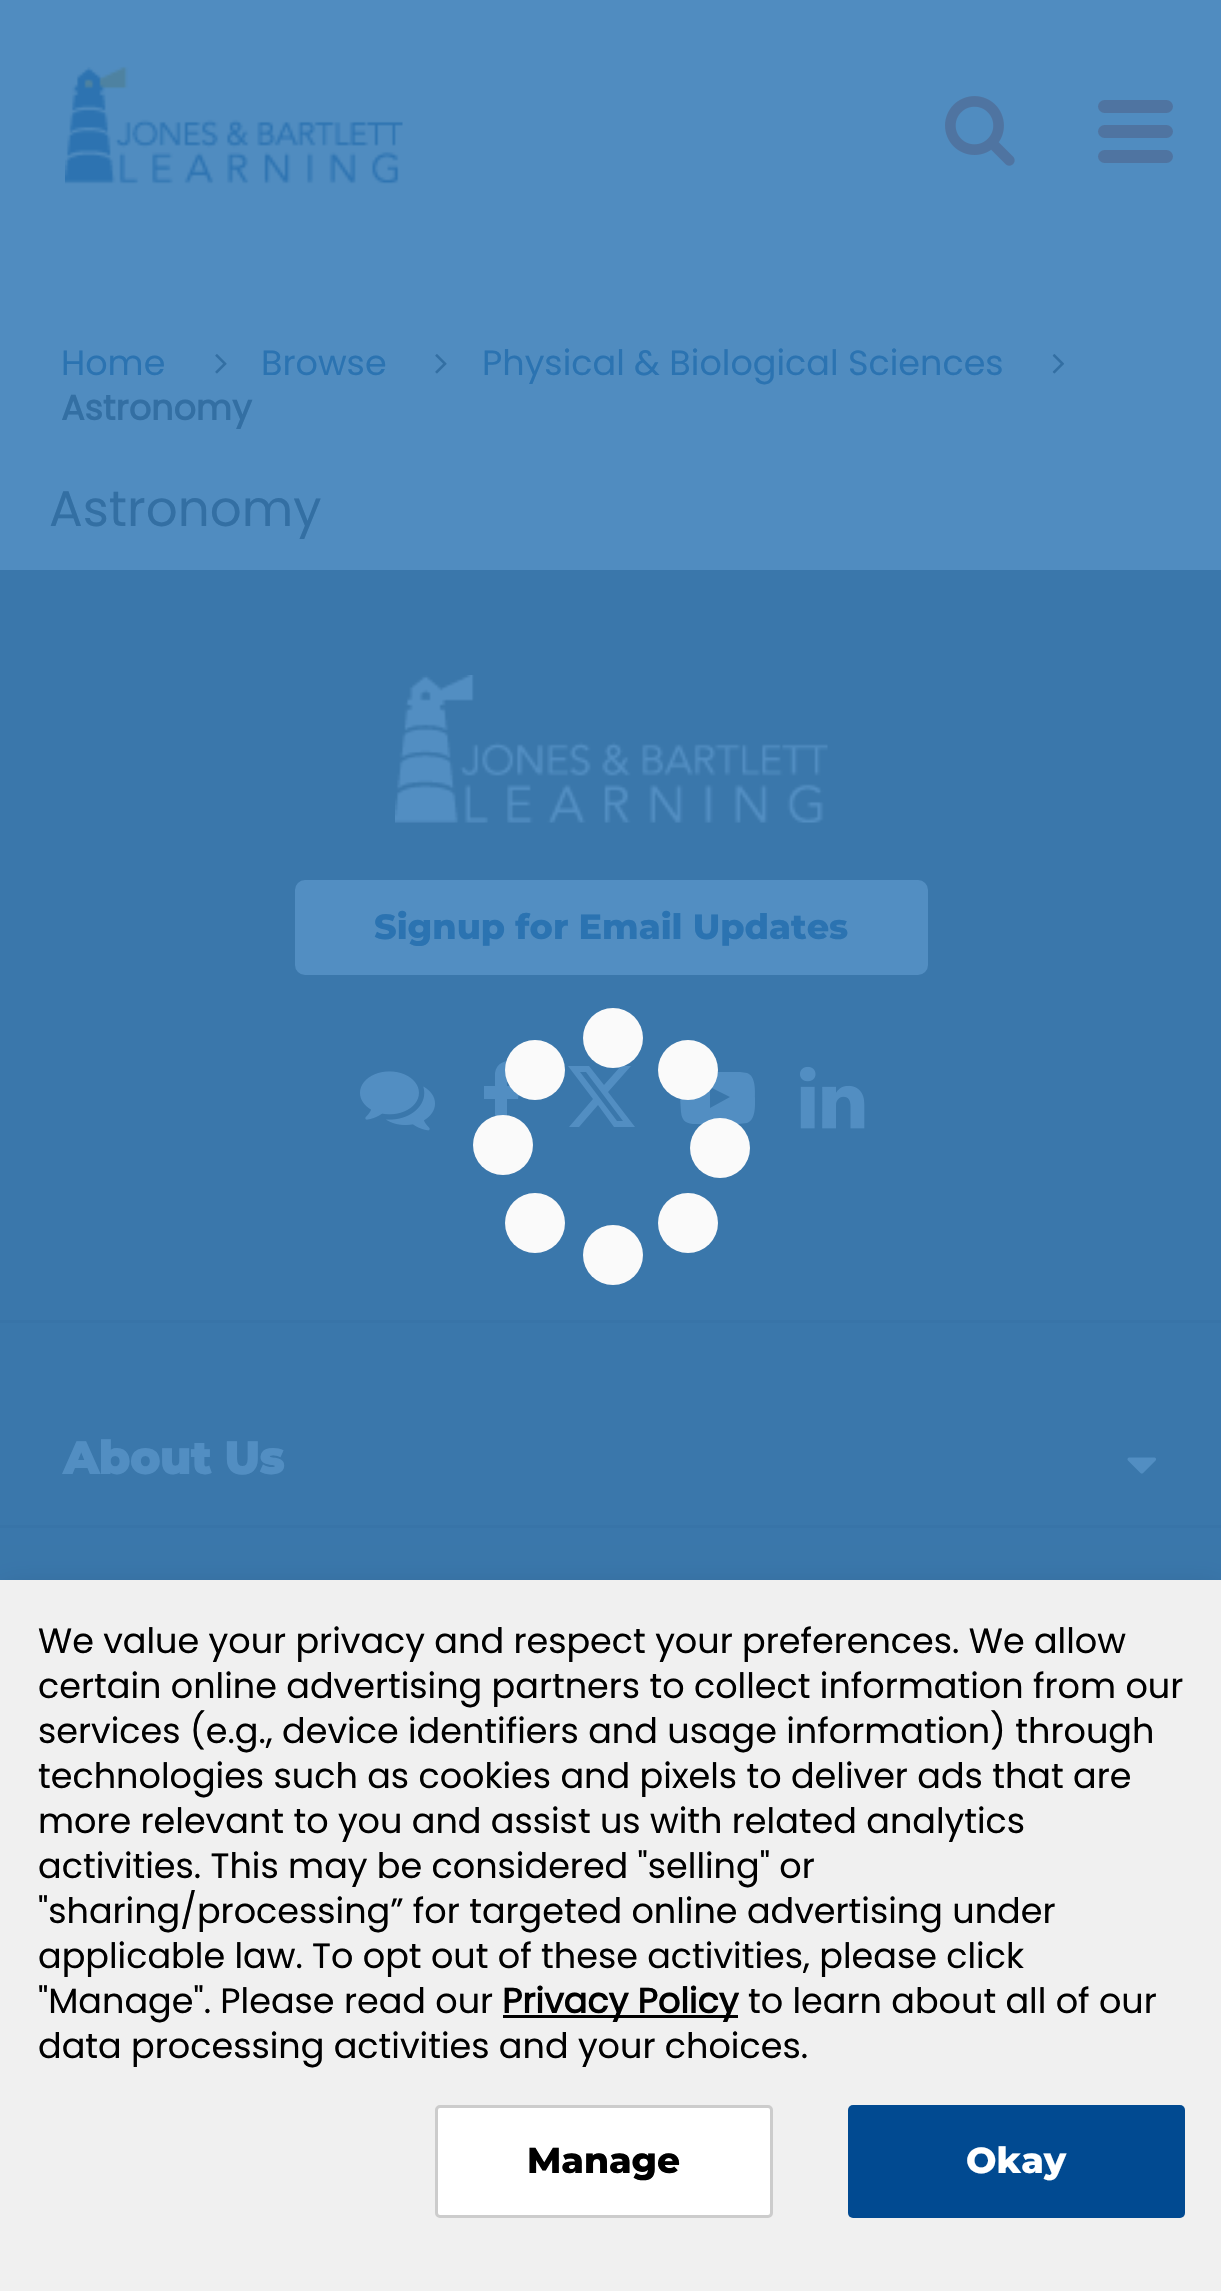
void draw(SkCanvas* canvas) {
    SkPaint paint;
    paint.setAntiAlias(true);
    canvas->clear(0xFF508CC0);
    canvas->drawImageRect(SkImages::DeferredFromEncodedData(SkData::MakeFromFileName("img1.png")), SkRect::MakeXYWH(65, 66, 338, 118), SkSamplingOptions());
    canvas->drawImageRect(SkImages::DeferredFromEncodedData(SkData::MakeFromFileName("img2.png")), SkRect::MakeXYWH(945, 96, 70, 70), SkSamplingOptions());
    paint.setColor(0xFF4F74A1);
    canvas->drawRoundRect(SkRect::MakeXYWH(1098, 100, 75, 13), 6.5f, 6.5f, paint);
    canvas->drawRoundRect(SkRect::MakeXYWH(1098, 125, 75, 13), 6.5f, 6.5f, paint);
    canvas->drawRoundRect(SkRect::MakeXYWH(1098, 150, 75, 13), 6.5f, 6.5f, paint);
    SkFont font1(fontMgr->matchFamilyStyle("Poppins", SkFontStyle::Normal()), 35);
    font1.setSubpixel(true);
    paint.setColor(0xFF2B73B1);
    canvas->drawString("Home", 61, 375, font1, paint);
    canvas->drawImageRect(SkImages::DeferredFromEncodedData(SkData::MakeFromFileName("img3.png")), SkRect::MakeXYWH(215, 354, 12, 20), SkSamplingOptions());
    canvas->drawString("Browse", 261, 375, font1, paint);
    canvas->drawImageRect(SkImages::DeferredFromEncodedData(SkData::MakeFromFileName("img3.png")), SkRect::MakeXYWH(435, 354, 12, 20), SkSamplingOptions());
    canvas->drawString("Physical & Biological Sciences", 482, 375, font1, paint);
    canvas->drawImageRect(SkImages::DeferredFromEncodedData(SkData::MakeFromFileName("img4.png")), SkRect::MakeXYWH(1052, 354, 13, 20), SkSamplingOptions());
    SkFont font2(fontMgr->matchFamilyStyle("Poppins", SkFontStyle::Bold()), 35);
    font2.setSubpixel(true);
    paint.setColor(0xFF336FA3);
    canvas->drawString("Astronomy", 61, 420, font2, paint);
    SkFont font3(fontMgr->matchFamilyStyle("Poppins", SkFontStyle::Normal()), 50);
    font3.setSubpixel(true);
    canvas->drawString("Astronomy", 49, 526, font3, paint);
    paint.setColor(0xFF3A77AB);
    canvas->drawRect(SkRect::MakeXYWH(0, 570, 1221, 1010), paint);
    paint.setColor(0xFF528EC2);
    canvas->drawPath(SkPathBuilder().moveTo(520, 1061).lineTo(520, 1072).cubicTo(506, 1072, 507, 1073, 507, 1086).lineTo(520, 1086).lineTo(518, 1099).lineTo(507, 1099).lineTo(507, 1130).lineTo(495, 1130).lineTo(495, 1099).lineTo(484, 1099).lineTo(484, 1086).lineTo(495, 1086).lineTo(495, 1073).cubicTo(497, 1060, 510, 1060, 520, 1061).close().detach(), paint);
    paint.setColor(0xFFFAFAFA);
    canvas->drawCircle(535, 1070, 30, paint);
    paint.setColor(0xFF528EC2);
    canvas->drawPath(SkPathBuilder().moveTo(621, 1066).lineTo(631, 1066).lineTo(608, 1092).lineTo(635, 1127).lineTo(614, 1127).lineTo(598, 1105).lineTo(579, 1127).lineTo(569, 1127).lineTo(593, 1099).lineTo(568, 1066).lineTo(589, 1066).lineTo(604, 1085).close().moveTo(617, 1121).lineTo(623, 1121).lineTo(586, 1072).lineTo(580, 1072).close().detach(), paint);
    paint.setColor(0xFFFAFAFA);
    canvas->drawCircle(613, 1038, 30, paint);
    paint.setColor(0xFF528EC2);
    canvas->drawPath(SkPathBuilder().moveTo(710, 1108).lineTo(730, 1097).lineTo(710, 1087).close().moveTo(718, 1072).lineTo(740, 1072).lineTo(747, 1073).cubicTo(756, 1076, 755, 1091, 755, 1098).cubicTo(755, 1105, 756, 1120, 747, 1123).lineTo(738, 1124).lineTo(718, 1125).lineTo(696, 1124).cubicTo(687, 1124, 682, 1122, 681, 1112).lineTo(680, 1097).cubicTo(680, 1078, 680, 1073, 697, 1072).close().detach(), paint);
    paint.setColor(0xFFFAFAFA);
    canvas->drawCircle(688, 1070, 30, paint);
    canvas->drawCircle(503, 1145, 30, paint);
    canvas->drawCircle(720, 1148, 30, paint);
    canvas->drawCircle(535, 1223, 30, paint);
    canvas->drawCircle(613, 1255, 30, paint);
    canvas->drawCircle(688, 1223, 30, paint);
    canvas->drawImageRect(SkImages::DeferredFromEncodedData(SkData::MakeFromFileName("img5.png")), SkRect::MakeXYWH(395, 675, 433, 148), SkSamplingOptions());
    paint.setColor(0xFF528EC2);
    canvas->drawRoundRect(SkRect::MakeXYWH(297.5f, 882.5f, 628, 90), 7.5f, 7.5f, paint);
    paint.setStyle(SkPaint::kStroke_Style);
    paint.setStrokeWidth(5);
    canvas->drawRoundRect(SkRect::MakeXYWH(297.5f, 882.5f, 628, 90), 7.5f, 7.5f, paint);
    SkFont font4(fontMgr->matchFamilyStyle("Montserrat", SkFontStyle(100, SkFontStyle::kNormal_Width, SkFontStyle::kUpright_Slant)), 35);
    font4.setSubpixel(true);
    paint.setStyle(SkPaint::kFill_Style);
    paint.setColor(0xFF2B73B1);
    canvas->drawString("Signup for Email Updates", 374, 939, font4, paint);
    canvas->drawImageRect(SkImages::DeferredFromEncodedData(SkData::MakeFromFileName("img6.png")), SkRect::MakeXYWH(360, 1071, 75, 60), SkSamplingOptions());
    canvas->drawImageRect(SkImages::DeferredFromEncodedData(SkData::MakeFromFileName("img7.png")), SkRect::MakeXYWH(800, 1066, 65, 63), SkSamplingOptions());
    paint.setColor(0xFF3874A8);
    canvas->drawRect(SkRect::MakeXYWH(0, 1320, 1221, 3), paint);
    canvas->drawRect(SkRect::MakeXYWH(0, 1525, 1221, 3), paint);
    SkFont font5(fontMgr->matchFamilyStyle("Montserrat", SkFontStyle::Bold()), 45);
    font5.setSubpixel(true);
    paint.setColor(0xFF528EC2);
    canvas->drawString("About Us", 63, 1474, font5, paint);
    canvas->drawImageRect(SkImages::DeferredFromEncodedData(SkData::MakeFromFileName("img8.png")), SkRect::MakeXYWH(1127, 1457, 29, 17), SkSamplingOptions());
    paint.setColor(0x26000000);
    paint.setMaskFilter(SkMaskFilter::MakeBlur(kNormal_SkBlurStyle, 15));
    canvas->drawRect(SkRect::MakeXYWH(0, 1590, 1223, 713), paint);
    paint.setMaskFilter(nullptr);
    paint.setColor(0xFFF0F0F0);
    canvas->drawRect(SkRect::MakeXYWH(0, 1580, 1221, 711), paint);
    paint.setColor(0xFF000000);
    canvas->drawString("We value your privacy and respect your preferences. We allow", 38, 1653, font1, paint);
    canvas->drawString("certain online advertising partners to collect information from our", 38, 1698, font1, paint);
    canvas->drawString("services (e.g., device identifiers and usage information) through", 38, 1743, font1, paint);
    canvas->drawString("technologies such as cookies and pixels to deliver ads that are", 38, 1788, font1, paint);
    canvas->drawString("more relevant to you and assist us with related analytics", 38, 1833, font1, paint);
    canvas->drawString("activities. This may be considered \"selling\" or", 38, 1878, font1, paint);
    canvas->drawString("\"sharing/processing” for targeted online advertising under", 38, 1923, font1, paint);
    canvas->drawString("applicable law. To opt out of these activities, please click", 38, 1968, font1, paint);
    canvas->drawString("\"Manage\". Please read our", 38, 2013, font1, paint);
    canvas->drawRect(SkRect::MakeXYWH(503, 2015, 235, 3), paint);
    canvas->drawString("Privacy Policy", 502, 2013, font2, paint);
    canvas->drawString("to learn about all of our", 748, 2013, font1, paint);
    canvas->drawString("data processing activities and your choices.", 38, 2058, font1, paint);
    paint.setColor(0xFFFFFFFF);
    canvas->drawRoundRect(SkRect::MakeXYWH(436.5f, 2106.5f, 335, 110), 3.5f, 3.5f, paint);
    paint.setStyle(SkPaint::kStroke_Style);
    paint.setStrokeWidth(3);
    paint.setColor(0xFFCCCCCC);
    canvas->drawRoundRect(SkRect::MakeXYWH(436.5f, 2106.5f, 335, 110), 3.5f, 3.5f, paint);
    SkFont font6(fontMgr->matchFamilyStyle("Montserrat", SkFontStyle(100, SkFontStyle::kNormal_Width, SkFontStyle::kUpright_Slant)), 36);
    font6.setSubpixel(true);
    paint.setStyle(SkPaint::kFill_Style);
    paint.setColor(0xFF000000);
    canvas->drawString("Manage", 527, 2173, font6, paint);
    paint.setColor(0xFF014A91);
    canvas->drawRoundRect(SkRect::MakeXYWH(848, 2105, 337, 113), 5, 5, paint);
    paint.setColor(0xFFFFFFFF);
    canvas->drawString("Okay", 966, 2173, font6, paint);
}
